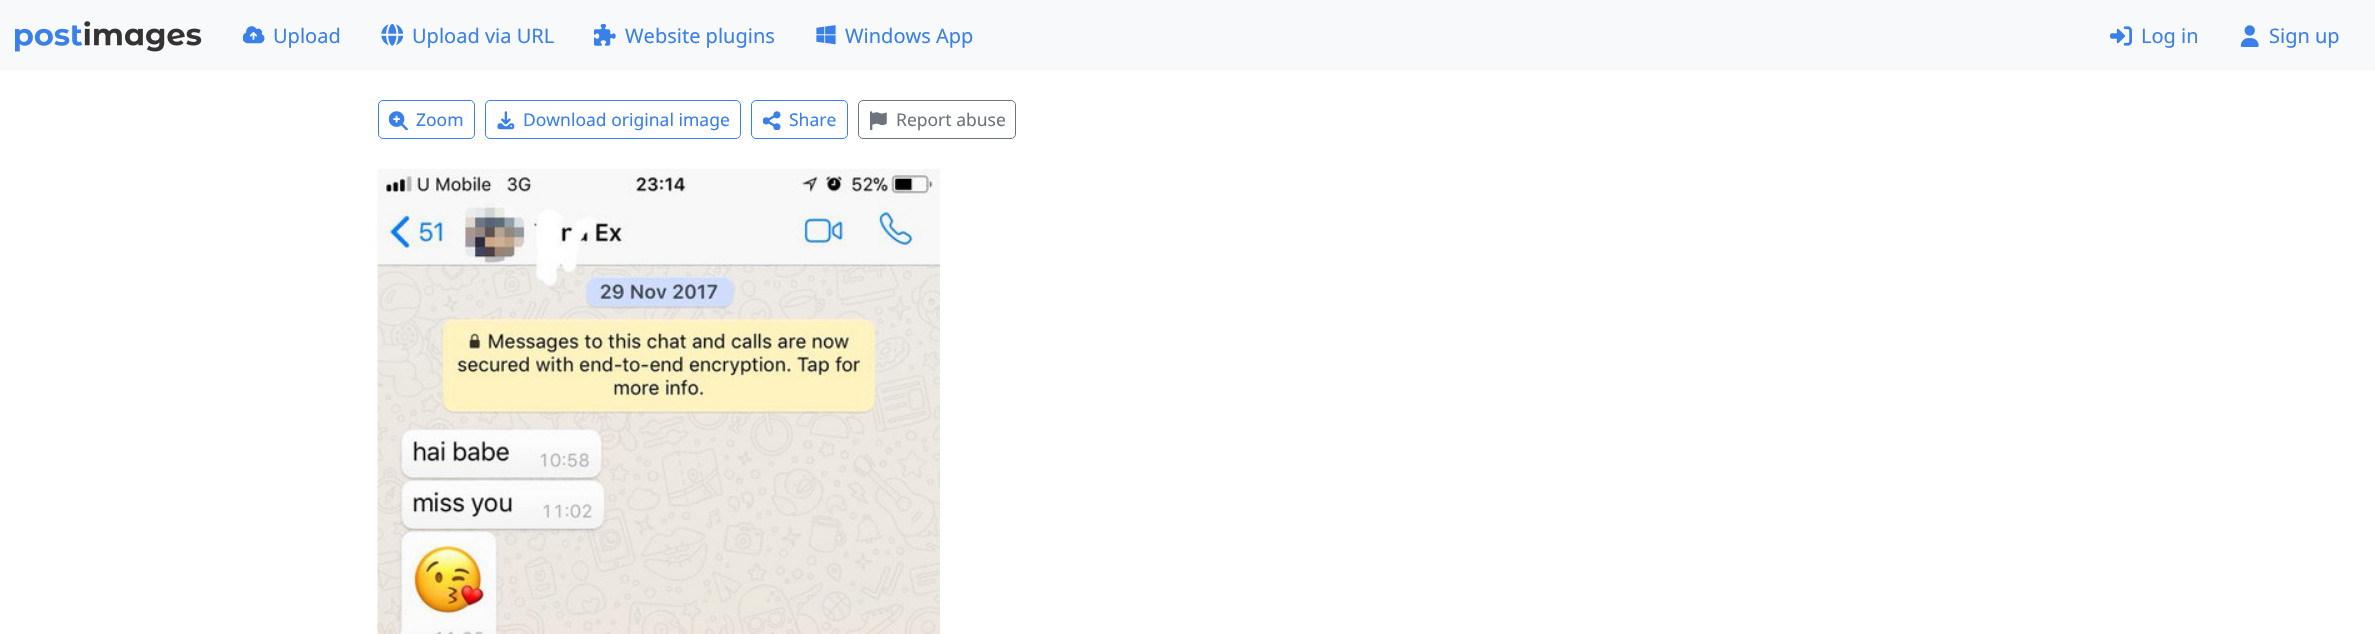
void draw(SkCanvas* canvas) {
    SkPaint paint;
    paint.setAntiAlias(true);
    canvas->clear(0xFFFFFFFF);
    paint.setColor(0xFFF8F9FA);
    canvas->drawRect(SkRect::MakeXYWH(0, 0, 2375, 70), paint);
    canvas->drawImageRect(SkImages::DeferredFromEncodedData(SkData::MakeFromFileName("img1.png")), SkRect::MakeXYWH(15, 21, 187, 31), SkSamplingOptions());
    canvas->drawImageRect(SkImages::DeferredFromEncodedData(SkData::MakeFromFileName("img2.png")), SkRect::MakeXYWH(243, 26, 22, 18), SkSamplingOptions());
    SkFont font1(fontMgr->matchFamilyStyle("Noto Sans", SkFontStyle::Normal()), 20);
    font1.setSubpixel(true);
    paint.setColor(0xFF3A80EA);
    canvas->drawString("Upload", 273, 43, font1, paint);
    canvas->drawImageRect(SkImages::DeferredFromEncodedData(SkData::MakeFromFileName("img3.png")), SkRect::MakeXYWH(381, 24, 22, 22), SkSamplingOptions());
    canvas->drawString("Upload via URL", 412, 43, font1, paint);
    canvas->drawImageRect(SkImages::DeferredFromEncodedData(SkData::MakeFromFileName("img4.png")), SkRect::MakeXYWH(594, 24, 22, 22), SkSamplingOptions());
    canvas->drawString("Website plugins", 625, 43, font1, paint);
    canvas->drawImageRect(SkImages::DeferredFromEncodedData(SkData::MakeFromFileName("img5.png")), SkRect::MakeXYWH(816, 25, 20, 20), SkSamplingOptions());
    canvas->drawString("Windows App", 845, 43, font1, paint);
    canvas->drawImageRect(SkImages::DeferredFromEncodedData(SkData::MakeFromFileName("img6.png")), SkRect::MakeXYWH(2110, 26, 22, 20), SkSamplingOptions());
    canvas->drawString("Log in", 2141, 43, font1, paint);
    canvas->drawImageRect(SkImages::DeferredFromEncodedData(SkData::MakeFromFileName("img7.png")), SkRect::MakeXYWH(2240, 25, 19, 22), SkSamplingOptions());
    canvas->drawString("Sign up", 2269, 43, font1, paint);
    paint.setStyle(SkPaint::kStroke_Style);
    paint.setStrokeWidth(1);
    canvas->drawRoundRect(SkRect::MakeXYWH(378.5f, 100.5f, 96, 38), 4.5f, 4.5f, paint);
    canvas->drawImageRect(SkImages::DeferredFromEncodedData(SkData::MakeFromFileName("img8.png")), SkRect::MakeXYWH(389, 111, 19, 19), SkSamplingOptions());
    SkFont font2(fontMgr->matchFamilyStyle("Noto Sans", SkFontStyle::Normal()), 17.5f);
    font2.setSubpixel(true);
    paint.setStyle(SkPaint::kFill_Style);
    canvas->drawString("Zoom", 416, 126, font2, paint);
    paint.setStyle(SkPaint::kStroke_Style);
    canvas->drawRoundRect(SkRect::MakeXYWH(485.5f, 100.5f, 255, 38), 4.5f, 4.5f, paint);
    canvas->drawImageRect(SkImages::DeferredFromEncodedData(SkData::MakeFromFileName("img9.png")), SkRect::MakeXYWH(497, 111, 18, 19), SkSamplingOptions());
    paint.setStyle(SkPaint::kFill_Style);
    canvas->drawString("Download original image", 523, 126, font2, paint);
    paint.setStyle(SkPaint::kStroke_Style);
    canvas->drawRoundRect(SkRect::MakeXYWH(751.5f, 100.5f, 96, 38), 4.5f, 4.5f, paint);
    canvas->drawImageRect(SkImages::DeferredFromEncodedData(SkData::MakeFromFileName("img10.png")), SkRect::MakeXYWH(763, 111, 18, 19), SkSamplingOptions());
    paint.setStyle(SkPaint::kFill_Style);
    canvas->drawString("Share", 789, 126, font2, paint);
    paint.setStyle(SkPaint::kStroke_Style);
    paint.setColor(0xFF6C757D);
    canvas->drawRoundRect(SkRect::MakeXYWH(858.5f, 100.5f, 157, 38), 4.5f, 4.5f, paint);
    canvas->drawImageRect(SkImages::DeferredFromEncodedData(SkData::MakeFromFileName("img11.png")), SkRect::MakeXYWH(869, 111, 18, 19), SkSamplingOptions());
    paint.setStyle(SkPaint::kFill_Style);
    canvas->drawString("Report abuse", 896, 126, font2, paint);
    canvas->drawImageRect(SkImages::DeferredFromEncodedData(SkData::MakeFromFileName("img12.png")), SkRect::MakeXYWH(377, 169, 563, 465), SkSamplingOptions());
}
